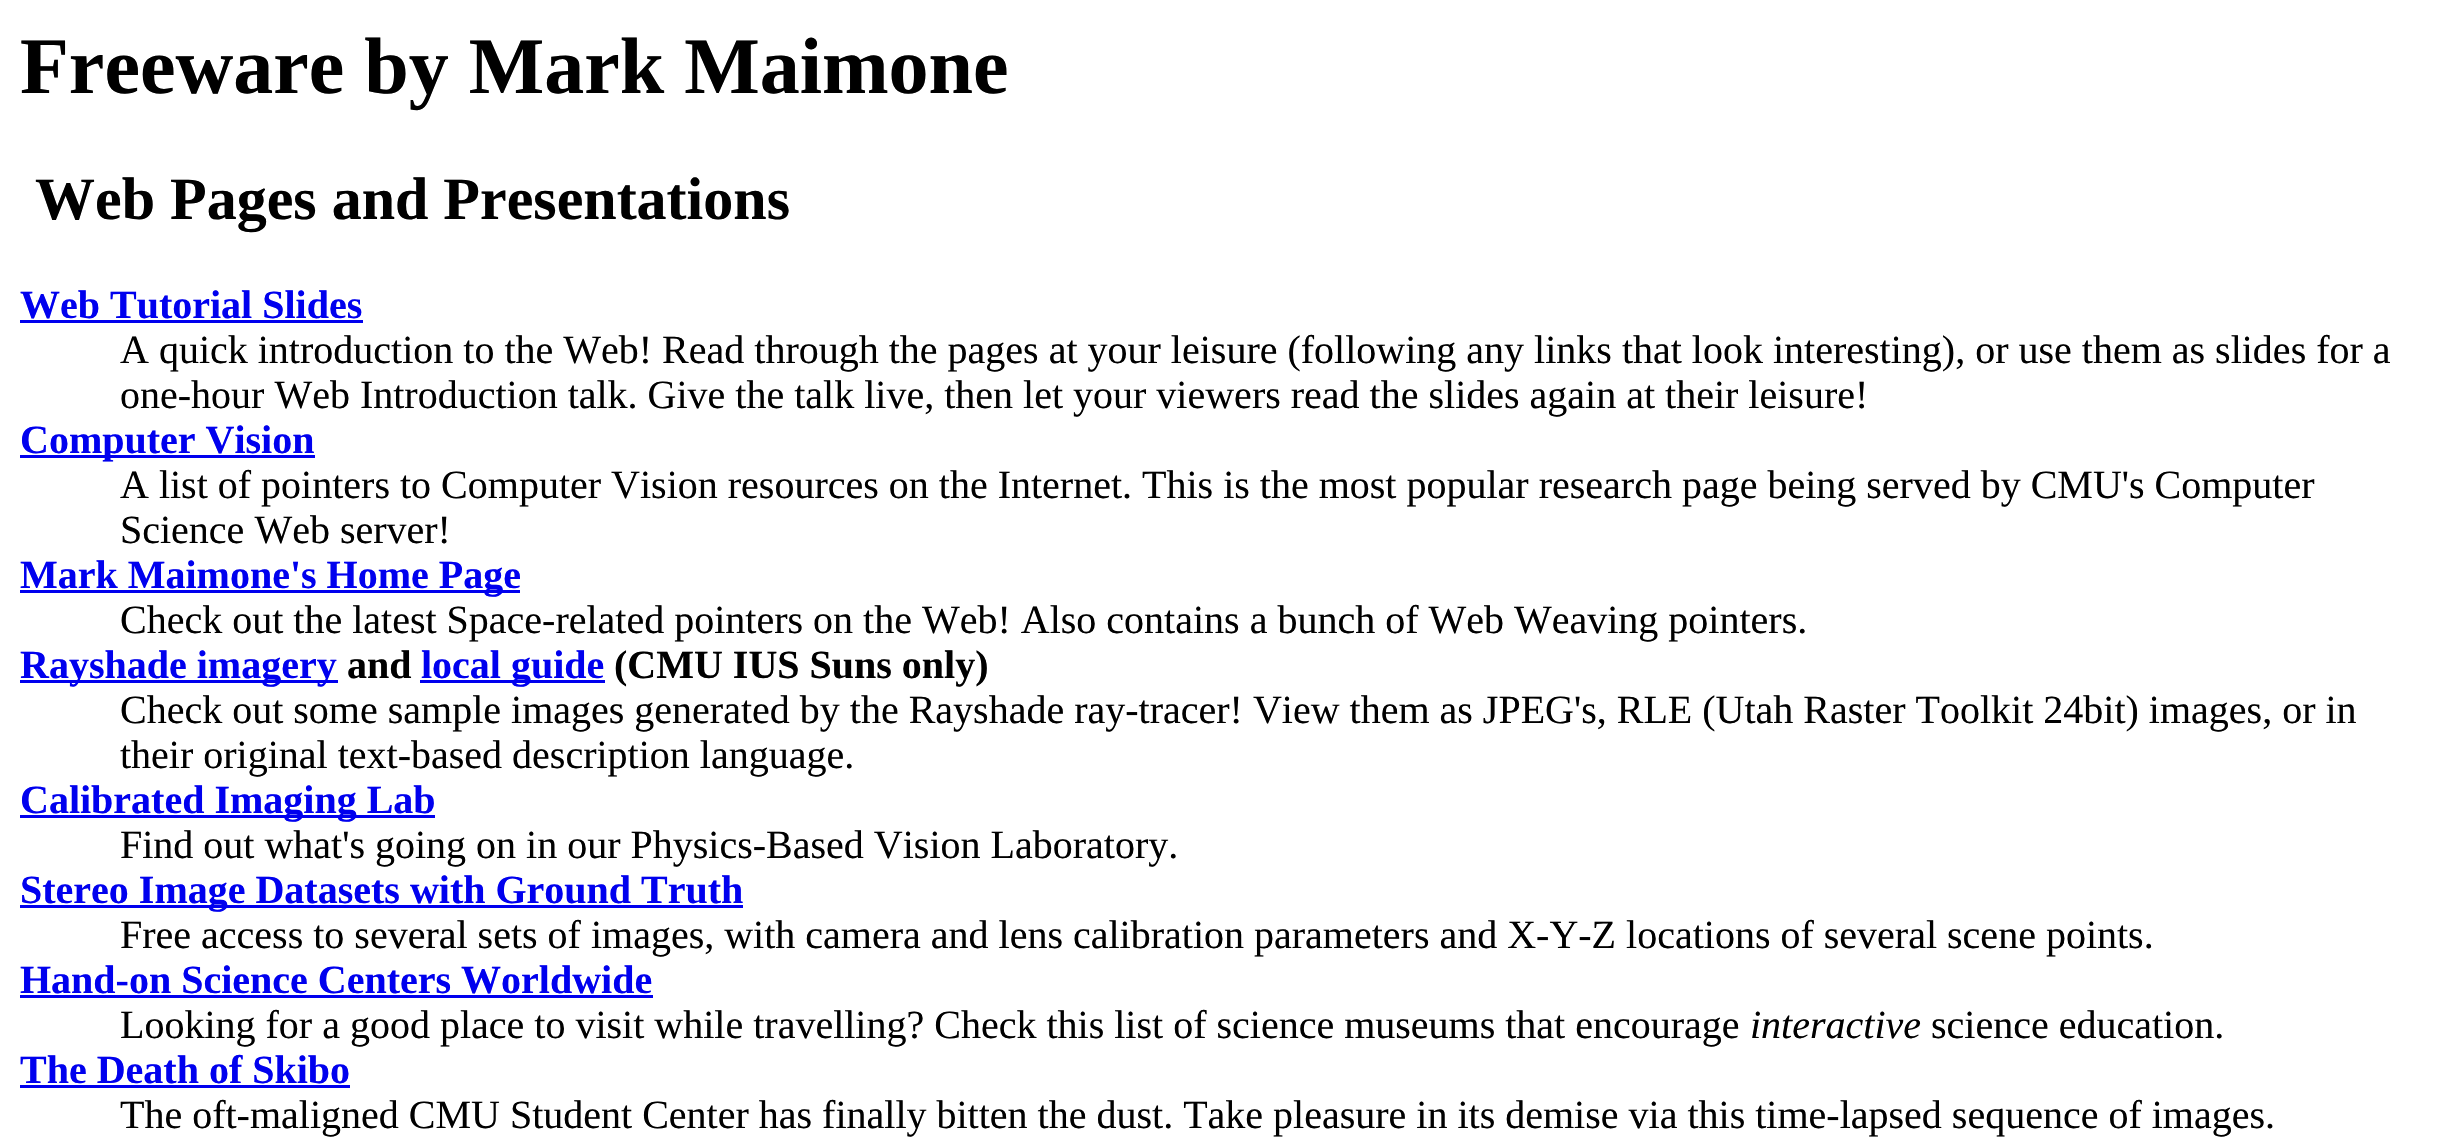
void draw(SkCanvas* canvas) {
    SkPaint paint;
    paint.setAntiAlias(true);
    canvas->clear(0xFFFFFFFF);
    SkFont font1(fontMgr->matchFamilyStyle("Liberation Serif", SkFontStyle::Bold()), 80);
    font1.setSubpixel(true);
    paint.setColor(0xFF000000);
    canvas->drawString("Freeware by Mark Maimone", 20, 93, font1, paint);
    SkFont font2(fontMgr->matchFamilyStyle("Liberation Serif", SkFontStyle::Bold()), 60);
    font2.setSubpixel(true);
    canvas->drawString("Web Pages and Presentations", 35, 219, font2, paint);
    SkFont font3(fontMgr->matchFamilyStyle("Liberation Serif", SkFontStyle::Bold()), 40);
    font3.setSubpixel(true);
    paint.setColor(0xFF0000EE);
    canvas->drawString("Web Tutorial Slides", 20, 318, font3, paint);
    canvas->drawRect(SkRect::MakeXYWH(20, 320, 343, 3), paint);
    SkFont font4(fontMgr->matchFamilyStyle("Liberation Serif", SkFontStyle::Normal()), 40);
    font4.setSubpixel(true);
    paint.setColor(0xFF000000);
    canvas->drawString("A quick introduction to the Web! Read through the pages at your leisure (following any links that look interesting), or use them as slides for a", 120, 363, font4, paint);
    canvas->drawString("one-hour Web Introduction talk. Give the talk live, then let your viewers read the slides again at their leisure!", 120, 408, font4, paint);
    paint.setColor(0xFF0000EE);
    canvas->drawRect(SkRect::MakeXYWH(20, 455, 295, 3), paint);
    canvas->drawString("Computer Vision", 20, 453, font3, paint);
    paint.setColor(0xFF000000);
    canvas->drawString("A list of pointers to Computer Vision resources on the Internet. This is the most popular research page being served by CMU's Computer", 120, 498, font4, paint);
    canvas->drawString("Science Web server!", 120, 543, font4, paint);
    paint.setColor(0xFF0000EE);
    canvas->drawRect(SkRect::MakeXYWH(20, 590, 500, 3), paint);
    canvas->drawString("Mark Maimone's Home Page", 20, 588, font3, paint);
    paint.setColor(0xFF000000);
    canvas->drawString("Check out the latest Space-related pointers on the Web! Also contains a bunch of Web Weaving pointers.", 120, 633, font4, paint);
    paint.setColor(0xFF0000EE);
    canvas->drawRect(SkRect::MakeXYWH(20, 680, 318, 3), paint);
    canvas->drawString("Rayshade imagery", 20, 678, font3, paint);
    paint.setColor(0xFF000000);
    canvas->drawString("and", 347, 678, font3, paint);
    paint.setColor(0xFF0000EE);
    canvas->drawRect(SkRect::MakeXYWH(420, 680, 185, 3), paint);
    canvas->drawString("local guide", 421, 678, font3, paint);
    paint.setColor(0xFF000000);
    canvas->drawString("(CMU IUS Suns only)", 614, 678, font3, paint);
    canvas->drawString("Check out some sample images generated by the Rayshade ray-tracer! View them as JPEG's, RLE (Utah Raster Toolkit 24bit) images, or in", 120, 723, font4, paint);
    canvas->drawString("their original text-based description language.", 120, 768, font4, paint);
    paint.setColor(0xFF0000EE);
    canvas->drawRect(SkRect::MakeXYWH(20, 815, 415, 3), paint);
    canvas->drawString("Calibrated Imaging Lab", 20, 813, font3, paint);
    paint.setColor(0xFF000000);
    canvas->drawString("Find out what's going on in our Physics-Based Vision Laboratory.", 120, 858, font4, paint);
    paint.setColor(0xFF0000EE);
    canvas->drawRect(SkRect::MakeXYWH(20, 905, 723, 3), paint);
    canvas->drawString("Stereo Image Datasets with Ground Truth", 20, 903, font3, paint);
    paint.setColor(0xFF000000);
    canvas->drawString("Free access to several sets of images, with camera and lens calibration parameters and X-Y-Z locations of several scene points.", 120, 948, font4, paint);
    paint.setColor(0xFF0000EE);
    canvas->drawString("Hand-on Science Centers Worldwide", 20, 993, font3, paint);
    canvas->drawRect(SkRect::MakeXYWH(20, 995, 633, 3), paint);
    paint.setColor(0xFF000000);
    canvas->drawString("Looking for a good place to visit while travelling? Check this list of science museums that encourage", 120, 1038, font4, paint);
    SkFont font5(fontMgr->matchFamilyStyle("Liberation Serif", SkFontStyle::Italic()), 40);
    font5.setSubpixel(true);
    canvas->drawString("interactive", 1750, 1038, font5, paint);
    canvas->drawString("science education.", 1931, 1038, font4, paint);
    paint.setColor(0xFF0000EE);
    canvas->drawString("The Death of Skibo", 20, 1083, font3, paint);
    canvas->drawRect(SkRect::MakeXYWH(20, 1085, 330, 3), paint);
    paint.setColor(0xFF000000);
    canvas->drawString("The oft-maligned CMU Student Center has finally bitten the dust. Take pleasure in its demise via this time-lapsed sequence of images.", 120, 1128, font4, paint);
}
